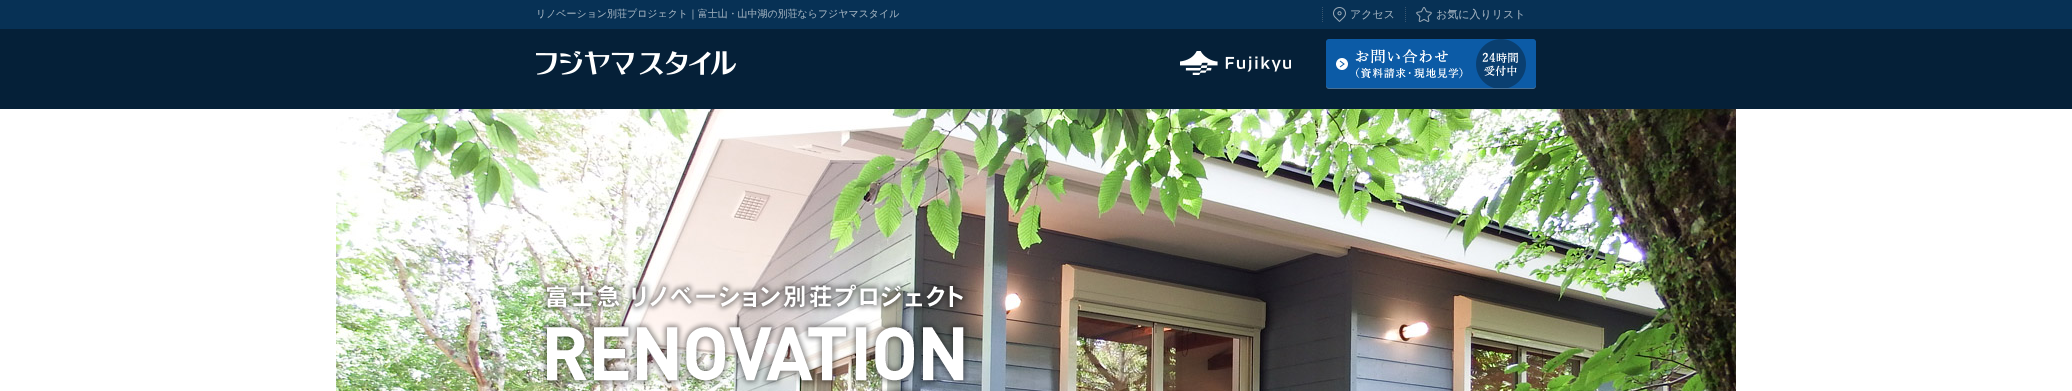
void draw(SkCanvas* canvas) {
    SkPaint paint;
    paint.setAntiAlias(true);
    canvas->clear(0xFF052038);
    paint.setColor(0xFF073155);
    canvas->drawRect(SkRect::MakeXYWH(0, 0, 2072, 29), paint);
    SkFont font1(fontMgr->matchFamilyStyle("WenQuanYi Zen Hei", SkFontStyle(500, SkFontStyle::kNormal_Width, SkFontStyle::kUpright_Slant)), 9.95f);
    font1.setSubpixel(true);
    paint.setColor(0xFF9CADBB);
    canvas->drawString("リノベーション別荘プロジェクト｜富士山・山中湖の別荘ならフジヤマスタイル", 536, 17, font1, paint);
    paint.setStyle(SkPaint::kStroke_Style);
    paint.setStrokeWidth(1);
    paint.setColor(0xFF39556E);
    paint.setPathEffect(SkDashPathEffect::Make({{1, 1}}, 0));
    canvas->drawPath(SkPathBuilder().moveTo(1322.5f, 7).lineTo(1322.5f, 22).detach(), paint);
    paint.setPathEffect(nullptr);
    canvas->drawImageRect(SkImages::DeferredFromEncodedData(SkData::MakeFromFileName("img1.png")), SkRect::MakeXYWH(1333, 7, 13, 15), SkSamplingOptions());
    SkFont font2(fontMgr->matchFamilyStyle("WenQuanYi Zen Hei", SkFontStyle(500, SkFontStyle::kNormal_Width, SkFontStyle::kUpright_Slant)), 11);
    font2.setSubpixel(true);
    paint.setStyle(SkPaint::kFill_Style);
    paint.setColor(0xFF9CADBB);
    canvas->drawString("アクセス", 1350, 18, font2, paint);
    paint.setStyle(SkPaint::kStroke_Style);
    paint.setColor(0xFF39556E);
    paint.setPathEffect(SkDashPathEffect::Make({{1, 1}}, 0));
    canvas->drawPath(SkPathBuilder().moveTo(1405.5f, 7).lineTo(1405.5f, 22).detach(), paint);
    paint.setPathEffect(nullptr);
    canvas->drawImageRect(SkImages::DeferredFromEncodedData(SkData::MakeFromFileName("img2.png")), SkRect::MakeXYWH(1416, 7, 16, 15), SkSamplingOptions());
    paint.setStyle(SkPaint::kFill_Style);
    paint.setColor(0xFF9CADBB);
    canvas->drawString("お気に入りリスト", 1436, 18, font2, paint);
    canvas->drawImageRect(SkImages::DeferredFromEncodedData(SkData::MakeFromFileName("img3.png")), SkRect::MakeXYWH(536, 51, 200, 24), SkSamplingOptions());
    canvas->drawImageRect(SkImages::DeferredFromEncodedData(SkData::MakeFromFileName("img4.png")), SkRect::MakeXYWH(1180, 51, 111, 24), SkSamplingOptions());
    canvas->drawImageRect(SkImages::DeferredFromEncodedData(SkData::MakeFromFileName("img5.png")), SkRect::MakeXYWH(1326, 39, 210, 50), SkSamplingOptions());
    paint.setColor(0xFFFFFFFF);
    canvas->drawRect(SkRect::MakeXYWH(0, 109, 2072, 282), paint);
    canvas->drawImageRect(SkImages::DeferredFromEncodedData(SkData::MakeFromFileName("img6.png")), SkRect::MakeXYWH(336, 109, 1400, 282), SkSamplingOptions());
    canvas->drawImageRect(SkImages::DeferredFromEncodedData(SkData::MakeFromFileName("img7.png")), SkRect::MakeXYWH(541, 279, 428, 112), SkSamplingOptions());
}
